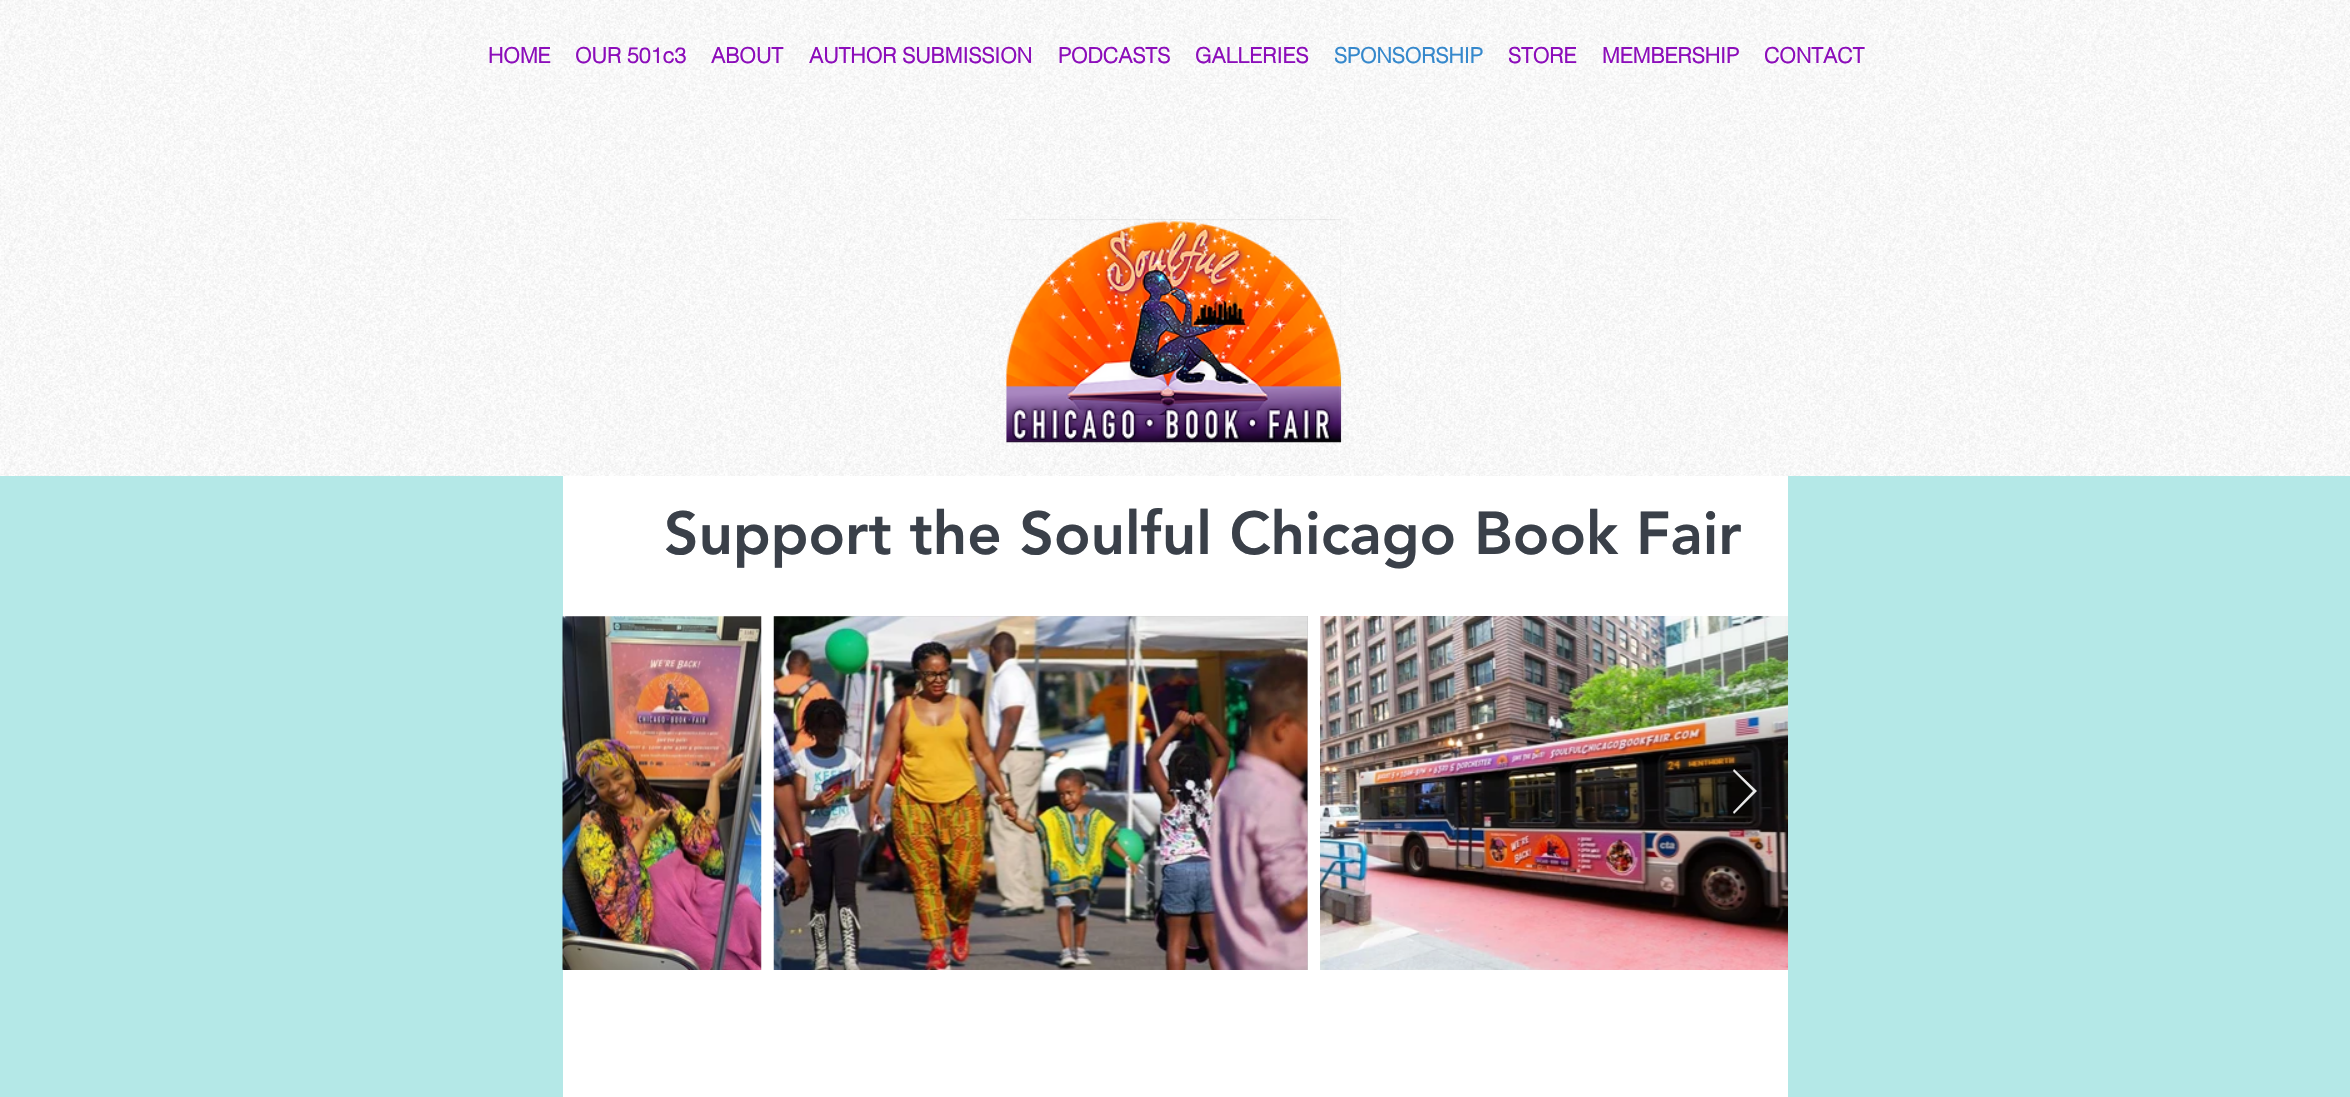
void draw(SkCanvas* canvas) {
    SkPaint paint;
    paint.setAntiAlias(true);
    canvas->clear(0xFFB4E8E7);
    paint.setColor(0xFFFFFFFF);
    canvas->drawRect(SkRect::MakeXYWH(0, 0, 2350, 476), paint);
    canvas->drawImageRect(SkImages::DeferredFromEncodedData(SkData::MakeFromFileName("img1.png")), SkRect::MakeXYWH(0, 0, 2350, 476), SkSamplingOptions());
    SkFont font1(fontMgr->matchFamilyStyle("helvetica", SkFontStyle::Bold()), 21.25f);
    font1.setSubpixel(true);
    paint.setColor(0xFF8C0DBA);
    canvas->drawString("HOME", 488, 63, font1, paint);
    canvas->drawString("OUR 501c3", 575, 63, font1, paint);
    canvas->drawString("ABOUT", 711, 63, font1, paint);
    canvas->drawString("AUTHOR SUBMISSION", 809, 63, font1, paint);
    canvas->drawString("PODCASTS", 1058, 63, font1, paint);
    canvas->drawString("GALLERIES", 1195, 63, font1, paint);
    paint.setColor(0xFF3588CC);
    canvas->drawString("SPONSORSHIP", 1334, 63, font1, paint);
    paint.setColor(0xFF8C0DBA);
    canvas->drawString("STORE", 1508, 63, font1, paint);
    canvas->drawString("MEMBERSHIP", 1602, 63, font1, paint);
    canvas->drawString("CONTACT", 1764, 63, font1, paint);
    canvas->drawImageRect(SkImages::DeferredFromEncodedData(SkData::MakeFromFileName("img2.png")), SkRect::MakeXYWH(1006, 219, 336, 224), SkSamplingOptions());
    paint.setColor(0xFFFFFFFF);
    canvas->drawRect(SkRect::MakeXYWH(563, 476, 1225, 621), paint);
    SkFont font2(fontMgr->matchFamilyStyle("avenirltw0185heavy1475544", SkFontStyle(900, SkFontStyle::kNormal_Width, SkFontStyle::kUpright_Slant)), 60);
    font2.setSubpixel(true);
    paint.setColor(0xFF3A4049);
    canvas->drawString("Support the Soulful Chicago Book Fair", 664, 554, font2, paint);
    canvas->drawImageRect(SkImages::DeferredFromEncodedData(SkData::MakeFromFileName("img3.png")), SkRect::MakeXYWH(562, 616, 200, 354), SkSamplingOptions());
    paint.setColor(0xFFC6C6C6);
    canvas->drawRect(SkRect::MakeXYWH(774, 616, 534, 354), paint);
    canvas->drawImageRect(SkImages::DeferredFromEncodedData(SkData::MakeFromFileName("img4.png")), SkRect::MakeXYWH(773, 616, 535, 354), SkSamplingOptions());
    canvas->drawImageRect(SkImages::DeferredFromEncodedData(SkData::MakeFromFileName("img5.png")), SkRect::MakeXYWH(1320, 616, 468, 354), SkSamplingOptions());
    paint.setColor(0xE6FFFFFF);
    canvas->drawPath(SkPathBuilder().moveTo(1733, 771).lineTo(1734, 769).lineTo(1757, 791).lineTo(1734, 814).lineTo(1733, 812).lineTo(1753, 791).close().detach(), paint);
}
